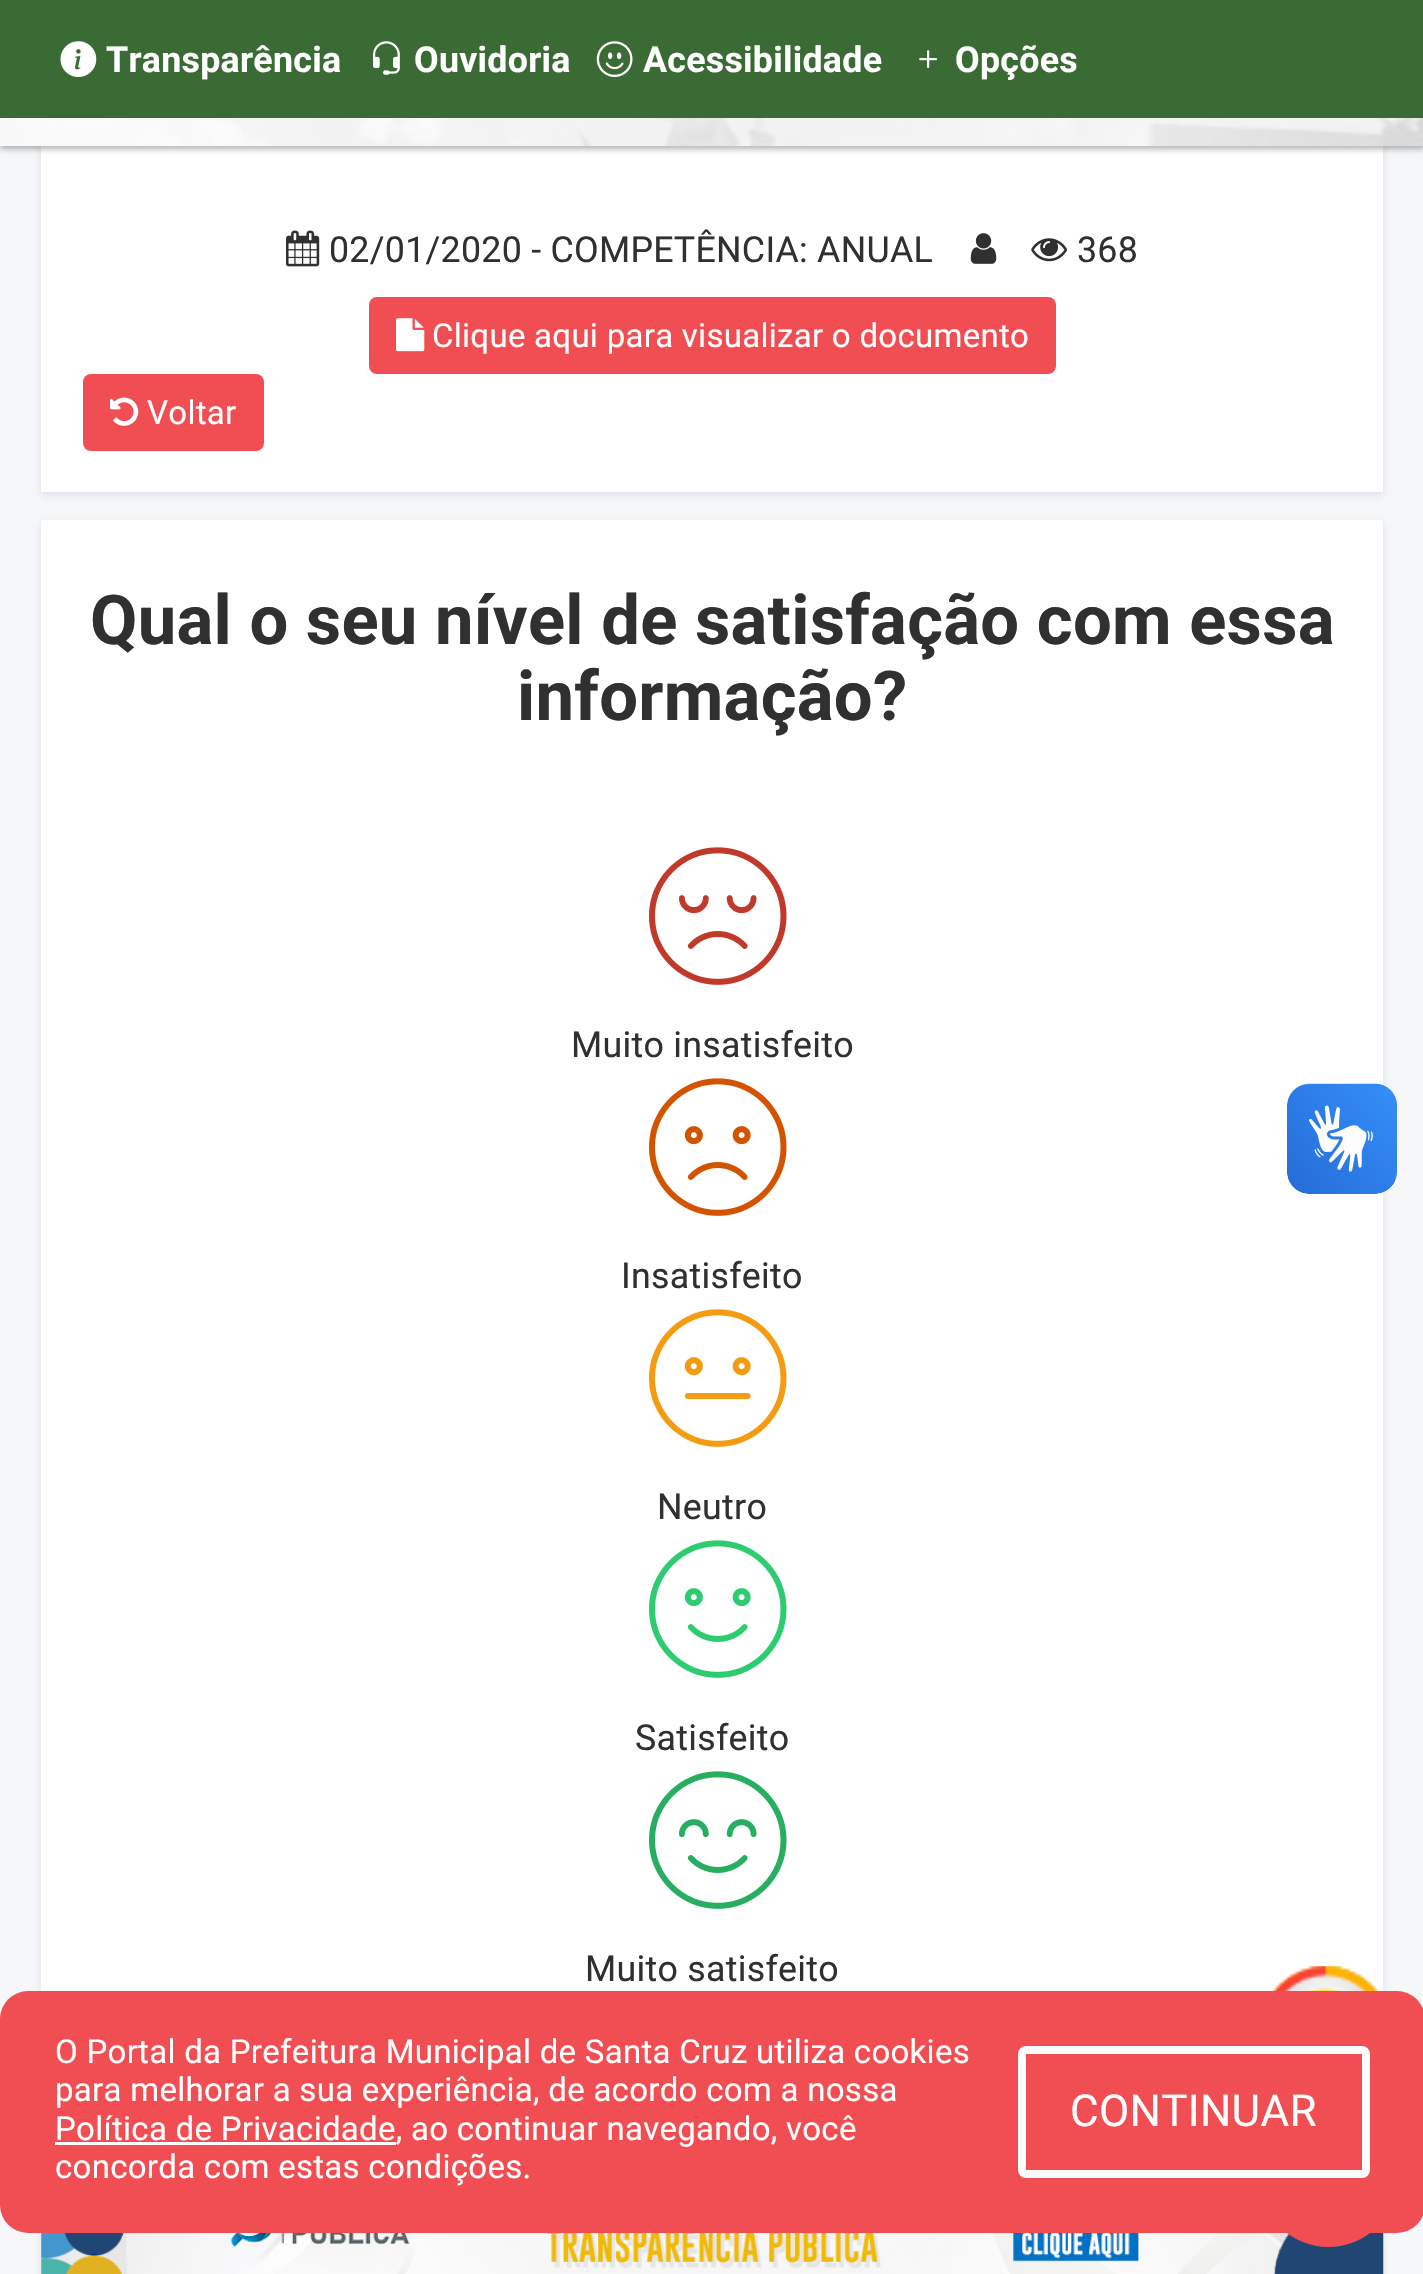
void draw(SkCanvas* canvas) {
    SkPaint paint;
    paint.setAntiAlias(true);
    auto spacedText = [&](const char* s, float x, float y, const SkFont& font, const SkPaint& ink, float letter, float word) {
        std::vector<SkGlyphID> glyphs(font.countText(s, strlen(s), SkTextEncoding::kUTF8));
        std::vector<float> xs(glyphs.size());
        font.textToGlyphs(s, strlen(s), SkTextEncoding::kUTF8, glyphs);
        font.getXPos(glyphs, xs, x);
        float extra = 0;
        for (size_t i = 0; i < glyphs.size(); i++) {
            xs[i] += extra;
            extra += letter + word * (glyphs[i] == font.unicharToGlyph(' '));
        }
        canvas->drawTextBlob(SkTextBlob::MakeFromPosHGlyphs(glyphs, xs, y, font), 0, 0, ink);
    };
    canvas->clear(0xFFF6F7F8);
    paint.setColor(0x17030047);
    paint.setMaskFilter(SkMaskFilter::MakeBlur(kNormal_SkBlurStyle, 4));
    canvas->drawRect(SkRect::MakeXYWH(41, -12, 1342, 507), paint);
    paint.setMaskFilter(nullptr);
    paint.setColor(0xFFFFFFFF);
    canvas->drawRect(SkRect::MakeXYWH(41, 146, 1342, 346), paint);
    paint.setColor(0x4D000000);
    paint.setMaskFilter(SkMaskFilter::MakeBlur(kNormal_SkBlurStyle, 3));
    canvas->drawRect(SkRect::MakeXYWH(0, 3, 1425, 146), paint);
    paint.setMaskFilter(nullptr);
    canvas->drawImageRect(SkImages::DeferredFromEncodedData(SkData::MakeFromFileName("img1.png")), SkRect::MakeXYWH(0, 118, 1423, 28), SkSamplingOptions());
    paint.setColor(0xFF3B6B35);
    canvas->drawRect(SkRect::MakeXYWH(0, 0, 1423, 118), paint);
    canvas->drawImageRect(SkImages::DeferredFromEncodedData(SkData::MakeFromFileName("img2.png")), SkRect::MakeXYWH(60, 41, 37, 36), SkSamplingOptions());
    SkFont font1(fontMgr->matchFamilyStyle("Roboto", SkFontStyle::Bold()), 35.75f);
    font1.setSubpixel(true);
    paint.setColor(0xFFFFFFFF);
    spacedText("Transparência", 106, 72, font1, paint, 0.28f, 0);
    canvas->drawImageRect(SkImages::DeferredFromEncodedData(SkData::MakeFromFileName("img3.png")), SkRect::MakeXYWH(373, 41, 27, 34), SkSamplingOptions());
    spacedText("Ouvidoria", 414, 72, font1, paint, 0.28f, 0);
    canvas->drawImageRect(SkImages::DeferredFromEncodedData(SkData::MakeFromFileName("img4.png")), SkRect::MakeXYWH(596, 41, 37, 36), SkSamplingOptions());
    spacedText("Acessibilidade", 643, 72, font1, paint, 0.28f, 0);
    canvas->drawImageRect(SkImages::DeferredFromEncodedData(SkData::MakeFromFileName("img5.png")), SkRect::MakeXYWH(919, 50, 18, 18), SkSamplingOptions());
    spacedText("Opções", 955, 72, font1, paint, 0.28f, 0);
    canvas->drawImageRect(SkImages::DeferredFromEncodedData(SkData::MakeFromFileName("img6.png")), SkRect::MakeXYWH(286, 230, 34, 37), SkSamplingOptions());
    SkFont font2(fontMgr->matchFamilyStyle("Roboto", SkFontStyle::Normal()), 35.75f);
    font2.setSubpixel(true);
    paint.setColor(0xFF303030);
    spacedText("02/01/2020 - COMPETÊNCIA: ANUAL", 329, 262, font2, paint, 0.28f, 0);
    canvas->drawImageRect(SkImages::DeferredFromEncodedData(SkData::MakeFromFileName("img7.png")), SkRect::MakeXYWH(970, 233, 27, 31), SkSamplingOptions());
    canvas->drawImageRect(SkImages::DeferredFromEncodedData(SkData::MakeFromFileName("img8.png")), SkRect::MakeXYWH(1031, 238, 36, 24), SkSamplingOptions());
    spacedText("368", 1077, 262, font2, paint, 0.28f, 0);
    paint.setColor(0xFFF04E52);
    canvas->drawRoundRect(SkRect::MakeXYWH(369, 297, 687, 77), 8, 8, paint);
    canvas->drawImageRect(SkImages::DeferredFromEncodedData(SkData::MakeFromFileName("img9.png")), SkRect::MakeXYWH(396, 318, 29, 34), SkSamplingOptions());
    SkFont font3(fontMgr->matchFamilyStyle("Roboto", SkFontStyle::Normal()), 33);
    font3.setSubpixel(true);
    paint.setColor(0xFFFFFFFF);
    spacedText("Clique aqui para visualizar o documento", 432, 347, font3, paint, 0.28f, 0);
    paint.setColor(0xFFF04E52);
    canvas->drawRoundRect(SkRect::MakeXYWH(83, 374, 181, 77), 8, 8, paint);
    canvas->drawImageRect(SkImages::DeferredFromEncodedData(SkData::MakeFromFileName("img10.png")), SkRect::MakeXYWH(110, 397, 29, 29), SkSamplingOptions());
    paint.setColor(0xFFFFFFFF);
    spacedText("Voltar", 147, 424, font3, paint, 0.28f, 0);
    paint.setColor(0x17030047);
    paint.setMaskFilter(SkMaskFilter::MakeBlur(kNormal_SkBlurStyle, 4));
    canvas->drawRect(SkRect::MakeXYWH(41, 523, 1342, 1608), paint);
    paint.setMaskFilter(nullptr);
    paint.setColor(0xFFFFFFFF);
    canvas->drawRect(SkRect::MakeXYWH(41, 520, 1342, 1471), paint);
    SkFont font4(fontMgr->matchFamilyStyle("Roboto", SkFontStyle::Bold()), 68.75f);
    font4.setSubpixel(true);
    paint.setColor(0xFF303030);
    spacedText("Qual o seu nível de satisfação com essa", 90, 644, font4, paint, 0.28f, 0);
    spacedText("informação?", 517, 720, font4, paint, 0.28f, 0);
    canvas->drawImageRect(SkImages::DeferredFromEncodedData(SkData::MakeFromFileName("img11.png")), SkRect::MakeXYWH(649, 847, 138, 138), SkSamplingOptions());
    spacedText("Muito insatisfeito", 571, 1057, font2, paint, 0.28f, 0);
    canvas->drawImageRect(SkImages::DeferredFromEncodedData(SkData::MakeFromFileName("img12.png")), SkRect::MakeXYWH(649, 1078, 138, 138), SkSamplingOptions());
    spacedText("Insatisfeito", 621, 1288, font2, paint, 0.28f, 0);
    canvas->drawImageRect(SkImages::DeferredFromEncodedData(SkData::MakeFromFileName("img13.png")), SkRect::MakeXYWH(649, 1309, 138, 138), SkSamplingOptions());
    spacedText("Neutro", 657, 1519, font2, paint, 0.28f, 0);
    canvas->drawImageRect(SkImages::DeferredFromEncodedData(SkData::MakeFromFileName("img14.png")), SkRect::MakeXYWH(649, 1540, 138, 138), SkSamplingOptions());
    spacedText("Satisfeito", 635, 1750, font2, paint, 0.28f, 0);
    canvas->drawImageRect(SkImages::DeferredFromEncodedData(SkData::MakeFromFileName("img15.png")), SkRect::MakeXYWH(649, 1771, 138, 138), SkSamplingOptions());
    spacedText("Muito satisfeito", 585, 1981, font2, paint, 0.28f, 0);
    canvas->drawImageRect(SkImages::DeferredFromEncodedData(SkData::MakeFromFileName("img16.png")), SkRect::MakeXYWH(1287, 1083, 110, 111), SkSamplingOptions());
    canvas->drawImageRect(SkImages::DeferredFromEncodedData(SkData::MakeFromFileName("img17.png")), SkRect::MakeXYWH(1287, 1084, 110, 110), SkSamplingOptions());
    canvas->drawImageRect(SkImages::DeferredFromEncodedData(SkData::MakeFromFileName("img18.png")), SkRect::MakeXYWH(1270, 1966, 111, 25), SkSamplingOptions());
    paint.setColor(0x17030047);
    paint.setMaskFilter(SkMaskFilter::MakeBlur(kNormal_SkBlurStyle, 4));
    canvas->drawRect(SkRect::MakeXYWH(41, 2159, 1342, 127), paint);
    paint.setMaskFilter(nullptr);
    canvas->drawImageRect(SkImages::DeferredFromEncodedData(SkData::MakeFromFileName("img19.png")), SkRect::MakeXYWH(41, 2233, 1343, 41), SkSamplingOptions());
    paint.setColor(0xFFF04E52);
    canvas->drawRoundRect(SkRect::MakeXYWH(1260, 2109, 137, 138), 68.5f, 68.5f, paint);
    canvas->drawRoundRect(SkRect::MakeXYWH(0, 1991, 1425, 242), 28, 28, paint);
    paint.setColor(0xFFFFFFFF);
    spacedText("O Portal da Prefeitura Municipal de Santa Cruz utiliza cookies", 55, 2063, font3, paint, 0.28f, 0);
    spacedText("para melhorar a sua experiência, de acordo com a nossa", 55, 2101, font3, paint, 0.28f, 0);
    canvas->drawRect(SkRect::MakeXYWH(55, 2142, 341, 3), paint);
    spacedText("Política de Privacidade, ao continuar navegando, você", 55, 2140, font3, paint, 0.28f, 0);
    spacedText("concorda com estas condições.", 55, 2178, font3, paint, 0.28f, 0);
    paint.setStyle(SkPaint::kStroke_Style);
    paint.setStrokeWidth(8);
    canvas->drawRoundRect(SkRect::MakeXYWH(1022, 2050, 344, 124), 4, 4, paint);
    SkFont font5(fontMgr->matchFamilyStyle("Roboto", SkFontStyle::Normal()), 44);
    font5.setSubpixel(true);
    paint.setStyle(SkPaint::kFill_Style);
    spacedText("CONTINUAR", 1070, 2126, font5, paint, 0.28f, 0);
}
